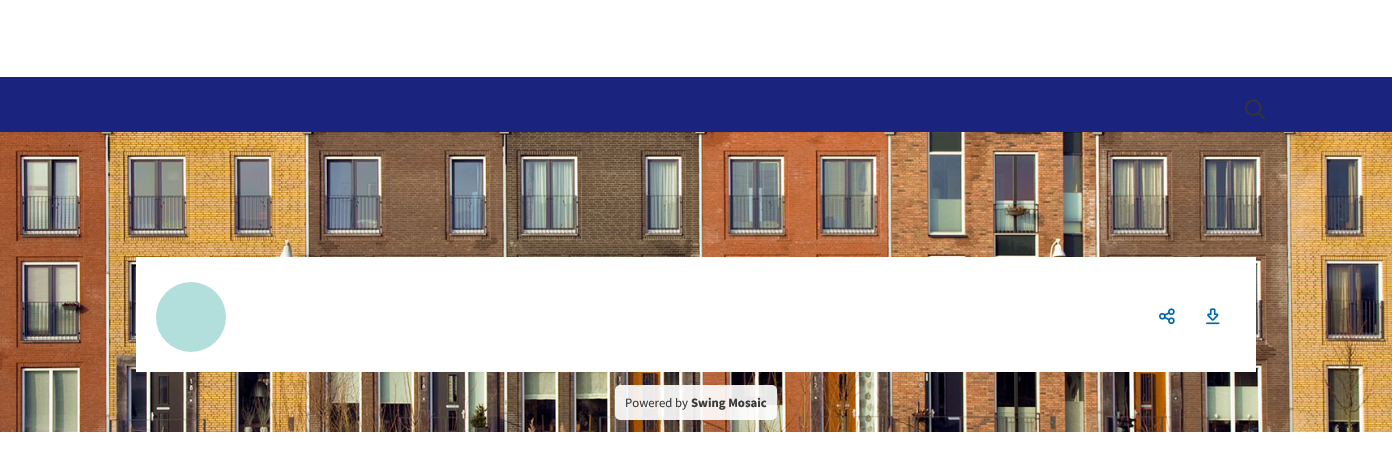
void draw(SkCanvas* canvas) {
    SkPaint paint;
    paint.setAntiAlias(true);
    canvas->clear(0xFFFFFFFF);
    paint.setColor(0xFF1A237E);
    canvas->drawRect(SkRect::MakeXYWH(0, 77, 1392, 55), paint);
    canvas->drawImageRect(SkImages::DeferredFromEncodedData(SkData::MakeFromFileName("img1.png")), SkRect::MakeXYWH(1245, 99, 20, 21), SkSamplingOptions());
    canvas->drawImageRect(SkImages::DeferredFromEncodedData(SkData::MakeFromFileName("img2.png")), SkRect::MakeXYWH(0, 132, 1392, 300), SkSamplingOptions());
    paint.setColor(0xFFFFFFFF);
    canvas->drawRect(SkRect::MakeXYWH(136, 257, 1120, 115), paint);
    paint.setColor(0xFFB2DFDB);
    canvas->drawCircle(191, 317, 35, paint);
    canvas->drawImageRect(SkImages::DeferredFromEncodedData(SkData::MakeFromFileName("img3.png")), SkRect::MakeXYWH(1159, 308, 16, 17), SkSamplingOptions());
    canvas->drawImageRect(SkImages::DeferredFromEncodedData(SkData::MakeFromFileName("img4.png")), SkRect::MakeXYWH(1206, 308, 14, 17), SkSamplingOptions());
    paint.setColor(0xE6FFFFFF);
    canvas->drawRoundRect(SkRect::MakeXYWH(615, 385, 162, 35), 5, 5, paint);
    SkFont font1(fontMgr->matchFamilyStyle("Source Sans Pro", SkFontStyle::Normal()), 12.75f);
    font1.setSubpixel(true);
    paint.setColor(0xFF3A3A3A);
    canvas->drawString("Powered by", 625, 407, font1, paint);
    SkFont font2(fontMgr->matchFamilyStyle("Source Sans Pro", SkFontStyle::Bold()), 12.75f);
    font2.setSubpixel(true);
    canvas->drawString("Swing Mosaic", 691, 407, font2, paint);
}
